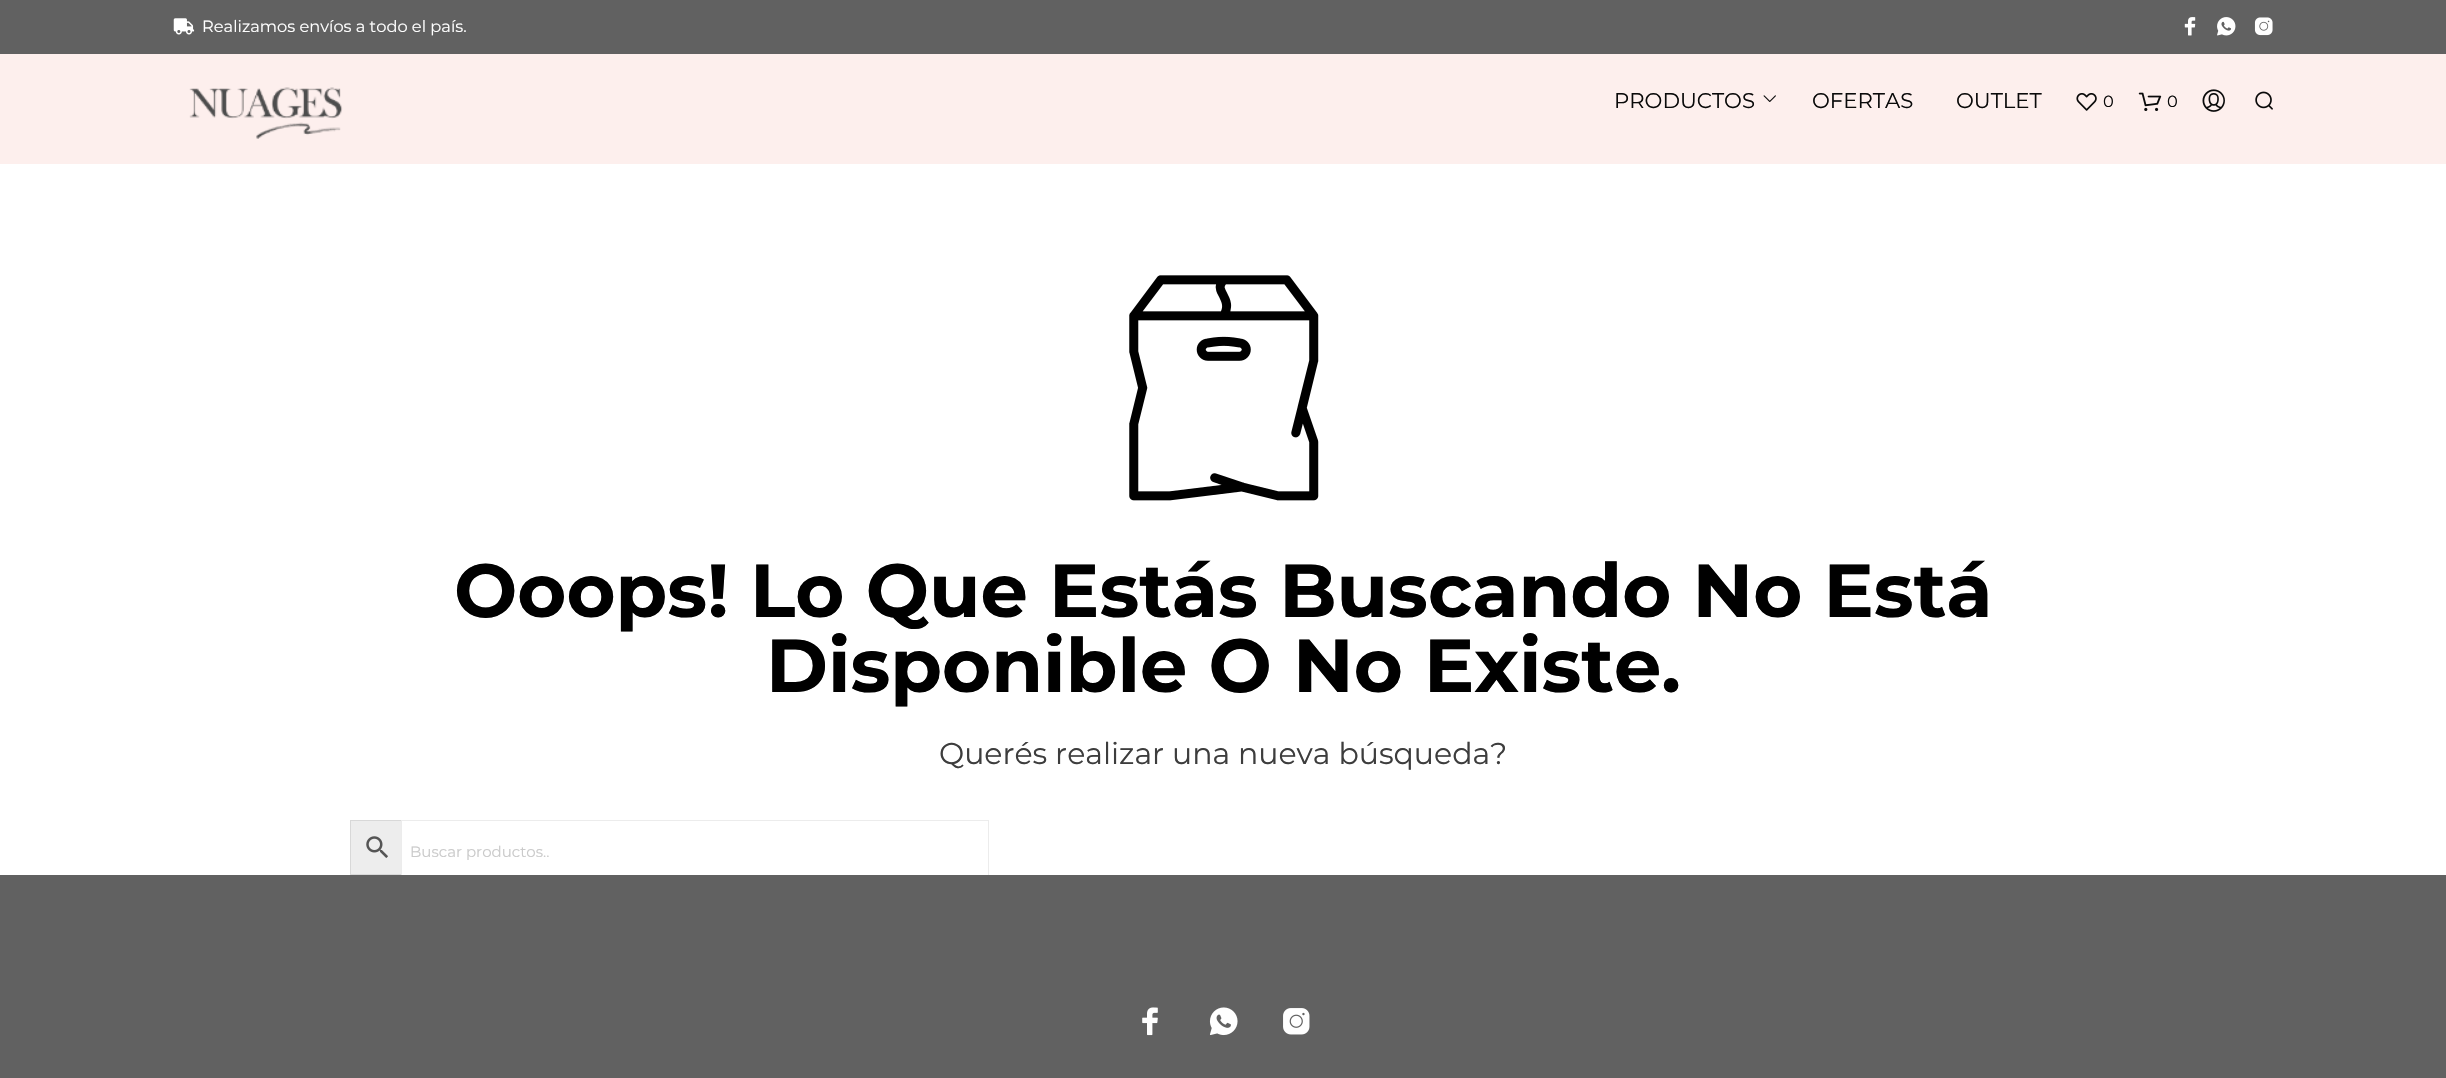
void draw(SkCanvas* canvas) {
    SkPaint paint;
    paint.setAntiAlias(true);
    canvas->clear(0xFFFFFFFF);
    paint.setColor(0xFF616161);
    canvas->drawRect(SkRect::MakeXYWH(0, 0, 2446, 54), paint);
    canvas->drawImageRect(SkImages::DeferredFromEncodedData(SkData::MakeFromFileName("img1.png")), SkRect::MakeXYWH(173, 18, 22, 17), SkSamplingOptions());
    SkFont font1(fontMgr->matchFamilyStyle("Montserrat", SkFontStyle::Normal()), 16.25f);
    font1.setSubpixel(true);
    paint.setColor(0xFFFFFFFF);
    canvas->drawString("Realizamos envíos a todo el país.", 202, 32, font1, paint);
    canvas->drawImageRect(SkImages::DeferredFromEncodedData(SkData::MakeFromFileName("img2.png")), SkRect::MakeXYWH(2184, 17, 12, 19), SkSamplingOptions());
    canvas->drawImageRect(SkImages::DeferredFromEncodedData(SkData::MakeFromFileName("img3.png")), SkRect::MakeXYWH(2217, 17, 19, 19), SkSamplingOptions());
    canvas->drawImageRect(SkImages::DeferredFromEncodedData(SkData::MakeFromFileName("img4.png")), SkRect::MakeXYWH(2254, 17, 19, 19), SkSamplingOptions());
    paint.setColor(0xFFFDEFED);
    canvas->drawRect(SkRect::MakeXYWH(0, 54, 2446, 110), paint);
    canvas->drawImageRect(SkImages::DeferredFromEncodedData(SkData::MakeFromFileName("img5.png")), SkRect::MakeXYWH(189, 87, 154, 52), SkSamplingOptions());
    SkFont font2(fontMgr->matchFamilyStyle("Montserrat", SkFontStyle::Normal()), 21.25f);
    font2.setSubpixel(true);
    paint.setColor(0xFF0A0A0A);
    canvas->drawString("PRODUCTOS", 1614, 108, font2, paint);
    canvas->drawImageRect(SkImages::DeferredFromEncodedData(SkData::MakeFromFileName("img6.png")), SkRect::MakeXYWH(1763, 95, 13, 7), SkSamplingOptions());
    canvas->drawString("OFERTAS", 1812, 108, font2, paint);
    canvas->drawString("OUTLET", 1956, 108, font2, paint);
    canvas->drawImageRect(SkImages::DeferredFromEncodedData(SkData::MakeFromFileName("img7.png")), SkRect::MakeXYWH(2076, 93, 21, 18), SkSamplingOptions());
    canvas->drawString("0", 2103, 107, font1, paint);
    canvas->drawImageRect(SkImages::DeferredFromEncodedData(SkData::MakeFromFileName("img8.png")), SkRect::MakeXYWH(2138, 92, 24, 19), SkSamplingOptions());
    canvas->drawString("0", 2167, 107, font1, paint);
    canvas->drawImageRect(SkImages::DeferredFromEncodedData(SkData::MakeFromFileName("img9.png")), SkRect::MakeXYWH(2202, 89, 23, 23), SkSamplingOptions());
    canvas->drawImageRect(SkImages::DeferredFromEncodedData(SkData::MakeFromFileName("img10.png")), SkRect::MakeXYWH(2255, 91, 18, 19), SkSamplingOptions());
    canvas->drawImageRect(SkImages::DeferredFromEncodedData(SkData::MakeFromFileName("img11.png")), SkRect::MakeXYWH(1129, 275, 190, 226), SkSamplingOptions());
    SkFont font3(fontMgr->matchFamilyStyle("Montserrat", SkFontStyle::Bold()), 75);
    font3.setSubpixel(true);
    paint.setColor(0xFF000000);
    canvas->drawString("Ooops! Lo Que Estás Buscando No Está", 454, 617, font3, paint);
    canvas->drawString("Disponible O No Existe.", 766, 692, font3, paint);
    SkFont font4(fontMgr->matchFamilyStyle("Montserrat", SkFontStyle::Normal()), 30);
    font4.setSubpixel(true);
    paint.setColor(0xFF3D3D3D);
    canvas->drawString("Querés realizar una nueva búsqueda?", 939, 764, font4, paint);
    paint.setColor(0xFFEDEDED);
    canvas->drawRect(SkRect::MakeXYWH(351, 821, 50, 53), paint);
    paint.setStyle(SkPaint::kStroke_Style);
    paint.setStrokeWidth(1);
    paint.setColor(0xFFD8D8D8);
    canvas->drawRect(SkRect::MakeXYWH(350.5f, 820.5f, 52, 54), paint);
    canvas->drawImageRect(SkImages::DeferredFromEncodedData(SkData::MakeFromFileName("img12.png")), SkRect::MakeXYWH(366, 836, 22, 22), SkSamplingOptions());
    paint.setStyle(SkPaint::kFill_Style);
    paint.setColor(0xFFFFFFFF);
    canvas->drawRect(SkRect::MakeXYWH(402, 821, 1, 54), paint);
    paint.setStyle(SkPaint::kStroke_Style);
    paint.setColor(0xFFECECEC);
    canvas->drawRect(SkRect::MakeXYWH(401.5f, 820.5f, 587, 62), paint);
    SkFont font5(fontMgr->matchFamilyStyle("Montserrat", SkFontStyle::Normal()), 15);
    font5.setSubpixel(true);
    paint.setStyle(SkPaint::kFill_Style);
    paint.setColor(0xFFCACACA);
    canvas->drawString("Buscar productos..", 410, 857, font5, paint);
    paint.setColor(0xFF616161);
    canvas->drawRect(SkRect::MakeXYWH(0, 875, 2446, 203), paint);
    canvas->drawImageRect(SkImages::DeferredFromEncodedData(SkData::MakeFromFileName("img13.png")), SkRect::MakeXYWH(1142, 1007, 16, 29), SkSamplingOptions());
    canvas->drawImageRect(SkImages::DeferredFromEncodedData(SkData::MakeFromFileName("img14.png")), SkRect::MakeXYWH(1209, 1007, 29, 29), SkSamplingOptions());
    canvas->drawImageRect(SkImages::DeferredFromEncodedData(SkData::MakeFromFileName("img15.png")), SkRect::MakeXYWH(1283, 1008, 27, 27), SkSamplingOptions());
}
